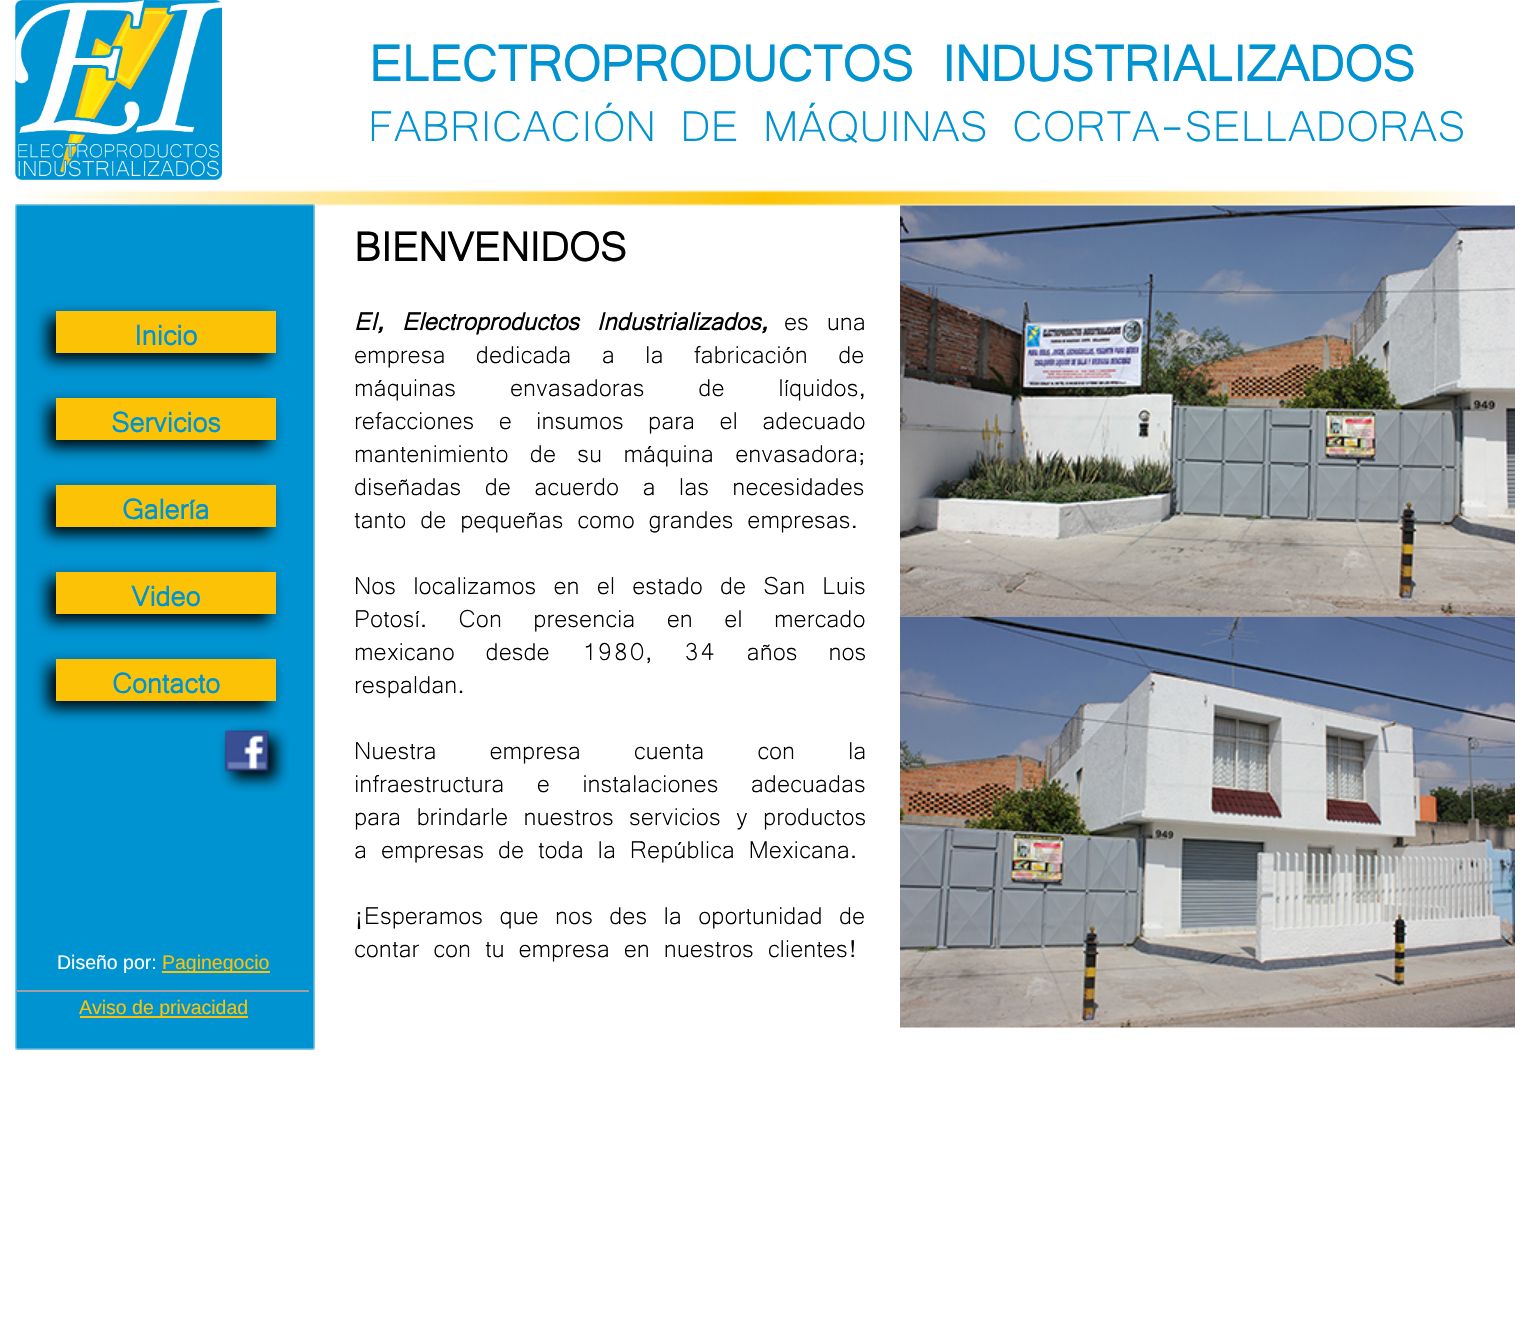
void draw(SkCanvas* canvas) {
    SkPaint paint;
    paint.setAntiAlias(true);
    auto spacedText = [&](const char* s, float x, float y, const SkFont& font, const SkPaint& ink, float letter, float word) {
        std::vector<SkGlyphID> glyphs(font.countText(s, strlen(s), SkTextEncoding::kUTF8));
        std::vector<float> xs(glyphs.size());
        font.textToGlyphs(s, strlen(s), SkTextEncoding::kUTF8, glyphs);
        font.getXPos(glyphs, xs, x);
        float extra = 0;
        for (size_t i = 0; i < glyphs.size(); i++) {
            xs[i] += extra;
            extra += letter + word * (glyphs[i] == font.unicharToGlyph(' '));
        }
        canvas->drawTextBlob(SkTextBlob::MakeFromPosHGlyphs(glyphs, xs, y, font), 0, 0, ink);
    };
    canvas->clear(0xFFFFFFFF);
    canvas->drawImageRect(SkImages::DeferredFromEncodedData(SkData::MakeFromFileName("img1.png")), SkRect::MakeXYWH(15, 0, 207, 180), SkSamplingOptions());
    SkFont font1(fontMgr->matchFamilyStyle("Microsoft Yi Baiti", SkFontStyle::Bold()), 64.5f);
    font1.setSubpixel(true);
    paint.setColor(0xFF0093D2);
    canvas->drawString("ELECTROPRODUCTOS INDUSTRIALIZADOS", 369, 81, font1, paint);
    SkFont font2(fontMgr->matchFamilyStyle("Microsoft Yi Baiti", SkFontStyle::Normal()), 55.5f);
    font2.setSubpixel(true);
    canvas->drawString("FABRICACIÓN DE MÁQUINAS CORTA-SELLADORAS", 368, 141, font2, paint);
    canvas->drawImageRect(SkImages::DeferredFromEncodedData(SkData::MakeFromFileName("img2.png")), SkRect::MakeXYWH(28, 190, 1474, 16), SkSamplingOptions());
    canvas->drawImageRect(SkImages::DeferredFromEncodedData(SkData::MakeFromFileName("img3.png")), SkRect::MakeXYWH(15, 204, 300, 846), SkSamplingOptions());
    SkFont font3(fontMgr->matchFamilyStyle("Microsoft Yi Baiti", SkFontStyle::Bold()), 52.5f);
    font3.setSubpixel(true);
    paint.setColor(0xFF000000);
    canvas->drawString("BIENVENIDOS", 354, 261, font3, paint);
    SkFont font4(fontMgr->matchFamilyStyle("Microsoft Yi Baiti", SkFontStyle::BoldItalic()), 31.5f);
    font4.setSubpixel(true);
    spacedText("EI, Electroproductos Industrializados,", 354, 330, font4, paint, 0, 4);
    SkFont font5(fontMgr->matchFamilyStyle("Microsoft Yi Baiti", SkFontStyle::Normal()), 31.5f);
    font5.setSubpixel(true);
    spacedText("es una", 784, 330, font5, paint, 0, 4);
    spacedText("empresa dedicada a la fabricación de", 354, 363, font5, paint, 0, 16.5f);
    spacedText("máquinas envasadoras de líquidos,", 354, 396, font5, paint, 0, 40);
    spacedText("refacciones e insumos para el adecuado", 354, 429, font5, paint, 0, 10.5f);
    spacedText("mantenimiento de su máquina envasadora;", 354, 462, font5, paint, 0, 7.5f);
    spacedText("diseñadas de acuerdo a las necesidades", 354, 495, font5, paint, 0, 9.5f);
    canvas->drawString("tanto de pequeñas como grandes empresas.", 354, 528, font5, paint);
    spacedText("Nos localizamos en el estado de San Luis", 354, 594, font5, paint, 0, 3.25f);
    spacedText("Potosí. Con presencia en el mercado", 354, 627, font5, paint, 0, 17.5f);
    spacedText("mexicano desde 1980, 34 años nos", 354, 660, font5, paint, 0, 17);
    canvas->drawString("respaldan.", 354, 693, font5, paint);
    spacedText("Nuestra empresa cuenta con la", 354, 759, font5, paint, 0, 39);
    spacedText("infraestructura e instalaciones adecuadas", 354, 792, font5, paint, 0, 18.5f);
    spacedText("para brindarle nuestros servicios y productos", 354, 825, font5, paint, 0, 1.5f);
    canvas->drawString("a empresas de toda la República Mexicana.", 354, 858, font5, paint);
    spacedText("¡Esperamos que nos des la oportunidad de", 354, 924, font5, paint, 0, 2.5f);
    canvas->drawString("contar con tu empresa en nuestros clientes!", 354, 957, font5, paint);
    canvas->drawImageRect(SkImages::DeferredFromEncodedData(SkData::MakeFromFileName("img4.png")), SkRect::MakeXYWH(900, 205, 615, 412), SkSamplingOptions());
    paint.setMaskFilter(SkMaskFilter::MakeBlur(kNormal_SkBlurStyle, 7.5f));
    canvas->drawRect(SkRect::MakeXYWH(48, 318, 221, 42), paint);
    paint.setMaskFilter(nullptr);
    paint.setColor(0xFFFCC306);
    canvas->drawRect(SkRect::MakeXYWH(56, 311, 220, 42), paint);
    SkFont font6(fontMgr->matchFamilyStyle("Microsoft Yi Baiti", SkFontStyle::Bold()), 36);
    font6.setSubpixel(true);
    paint.setColor(0xFF0093D2);
    canvas->drawString("Inicio", 134, 345, font6, paint);
    paint.setColor(0xFF000000);
    paint.setMaskFilter(SkMaskFilter::MakeBlur(kNormal_SkBlurStyle, 7.5f));
    canvas->drawRect(SkRect::MakeXYWH(48, 405, 221, 42), paint);
    paint.setMaskFilter(nullptr);
    paint.setColor(0xFFFCC306);
    canvas->drawRect(SkRect::MakeXYWH(56, 398, 220, 42), paint);
    paint.setColor(0xFF0093D2);
    canvas->drawString("Servicios", 111, 432, font6, paint);
    paint.setColor(0xFF000000);
    paint.setMaskFilter(SkMaskFilter::MakeBlur(kNormal_SkBlurStyle, 7.5f));
    canvas->drawRect(SkRect::MakeXYWH(48, 492, 221, 42), paint);
    paint.setMaskFilter(nullptr);
    paint.setColor(0xFFFCC306);
    canvas->drawRect(SkRect::MakeXYWH(56, 485, 220, 42), paint);
    paint.setColor(0xFF0093D2);
    canvas->drawString("Galería", 122, 519, font6, paint);
    paint.setColor(0xFF000000);
    paint.setMaskFilter(SkMaskFilter::MakeBlur(kNormal_SkBlurStyle, 7.5f));
    canvas->drawRect(SkRect::MakeXYWH(48, 579, 221, 42), paint);
    paint.setMaskFilter(nullptr);
    paint.setColor(0xFFFCC306);
    canvas->drawRect(SkRect::MakeXYWH(56, 572, 220, 42), paint);
    paint.setColor(0xFF0093D2);
    canvas->drawString("Video", 131, 606, font6, paint);
    paint.setColor(0xFF000000);
    paint.setMaskFilter(SkMaskFilter::MakeBlur(kNormal_SkBlurStyle, 7.5f));
    canvas->drawRect(SkRect::MakeXYWH(48, 666, 221, 42), paint);
    paint.setMaskFilter(nullptr);
    paint.setColor(0xFFFCC306);
    canvas->drawRect(SkRect::MakeXYWH(56, 659, 220, 42), paint);
    paint.setColor(0xFF0093D2);
    canvas->drawString("Contacto", 112, 693, font6, paint);
    canvas->drawImageRect(SkImages::DeferredFromEncodedData(SkData::MakeFromFileName("img5.png")), SkRect::MakeXYWH(219, 725, 70, 67), SkSamplingOptions());
    canvas->drawImageRect(SkImages::DeferredFromEncodedData(SkData::MakeFromFileName("img6.png")), SkRect::MakeXYWH(900, 616, 615, 412), SkSamplingOptions());
    SkFont font7(fontMgr->matchFamilyStyle("Liberation Sans", SkFontStyle::Normal()), 19.5f);
    font7.setSubpixel(true);
    paint.setColor(0xFFFFFFFF);
    canvas->drawString("Diseño por:", 57, 969, font7, paint);
    paint.setColor(0xFFFCC306);
    canvas->drawRect(SkRect::MakeXYWH(162, 971, 108, 2), paint);
    canvas->drawString("Paginegocio", 162, 969, font7, paint);
    canvas->drawRect(SkRect::MakeXYWH(80, 1016, 168, 2), paint);
    canvas->drawString("Aviso de privacidad", 79, 1014, font7, paint);
    paint.setColor(0xFFA0A0A0);
    canvas->drawRect(SkRect::MakeXYWH(17, 990, 292, 2), paint);
}
